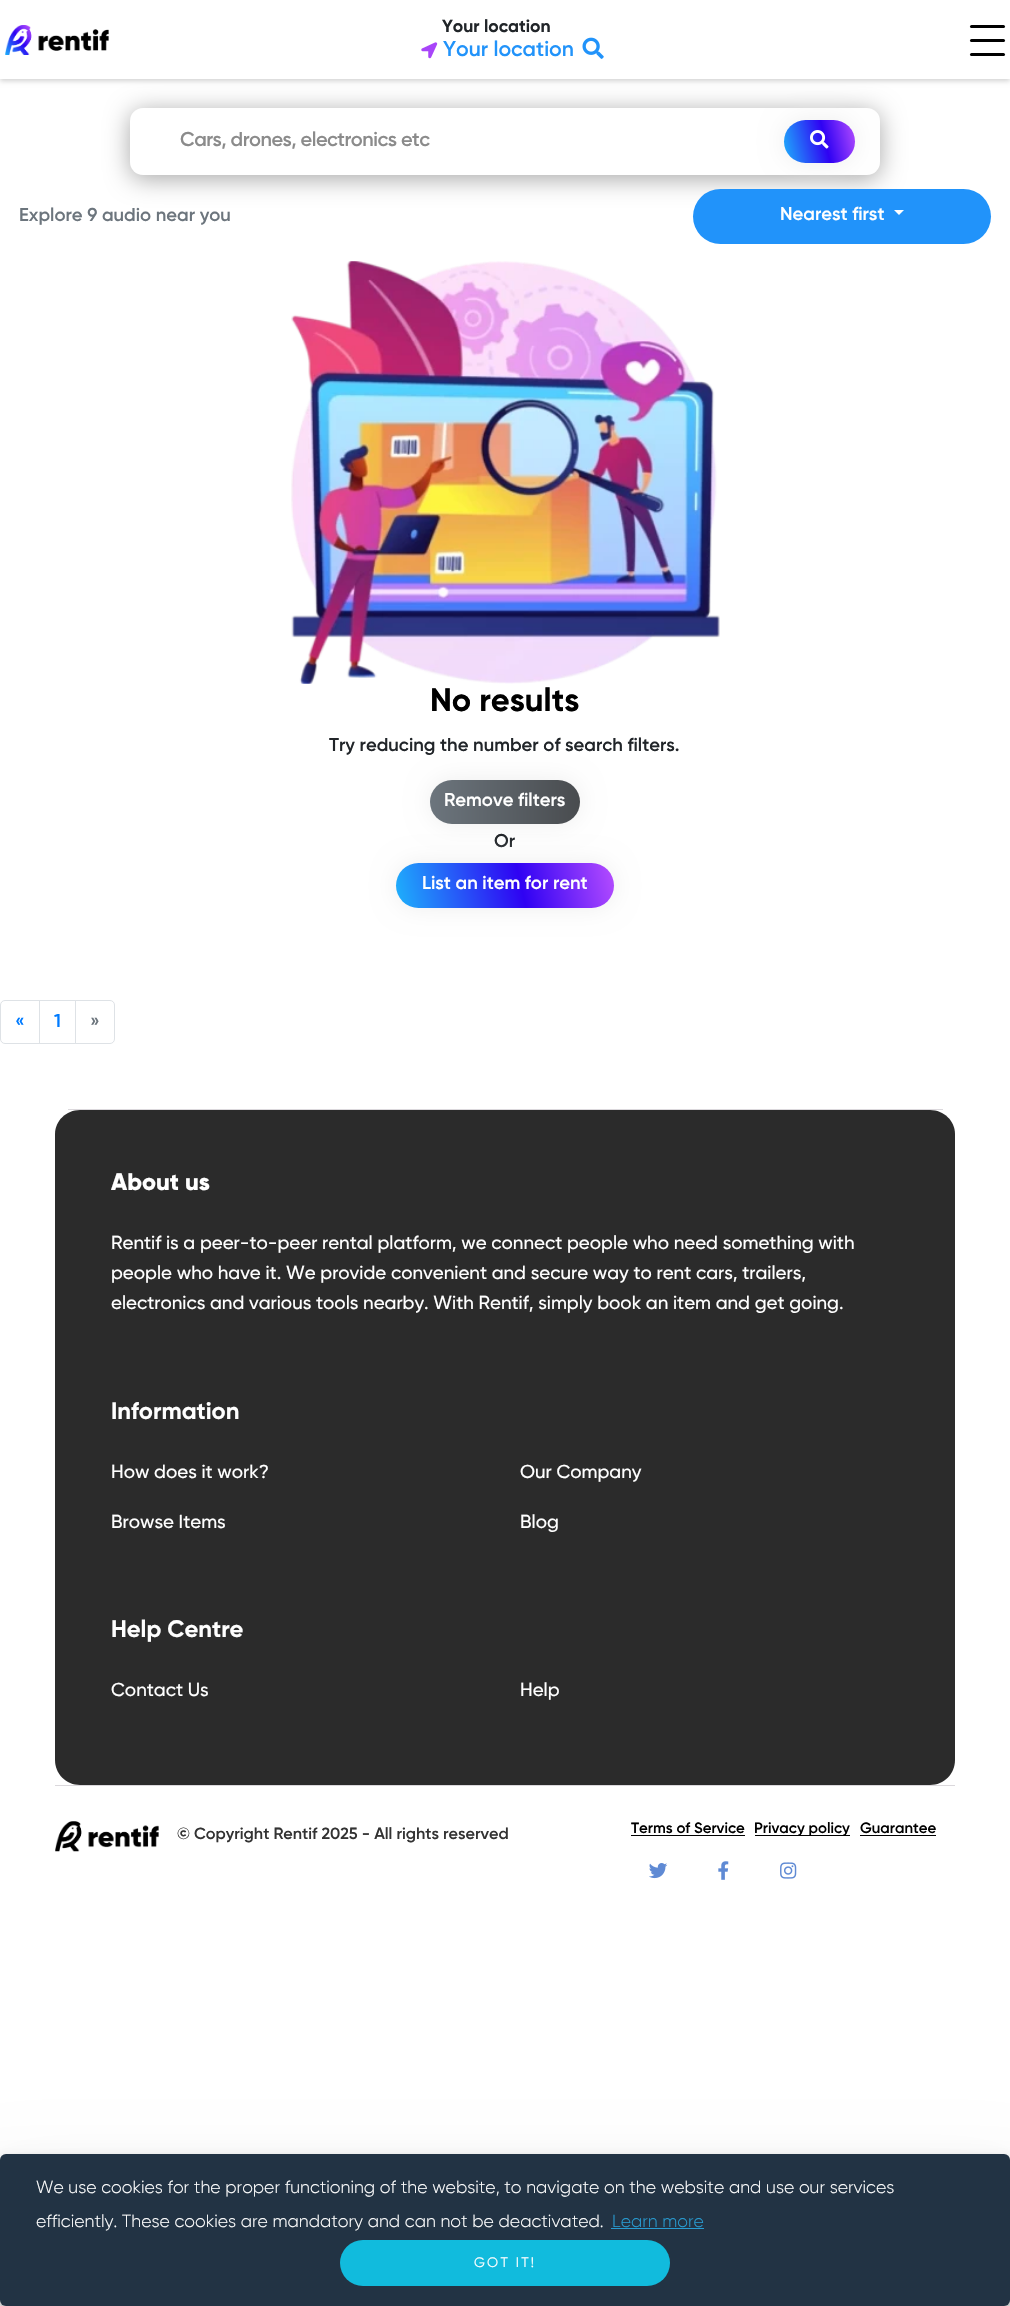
void draw(SkCanvas* canvas) {
    SkPaint paint;
    paint.setAntiAlias(true);
    auto spacedText = [&](const char* s, float x, float y, const SkFont& font, const SkPaint& ink, float letter, float word) {
        std::vector<SkGlyphID> glyphs(font.countText(s, strlen(s), SkTextEncoding::kUTF8));
        std::vector<float> xs(glyphs.size());
        font.textToGlyphs(s, strlen(s), SkTextEncoding::kUTF8, glyphs);
        font.getXPos(glyphs, xs, x);
        float extra = 0;
        for (size_t i = 0; i < glyphs.size(); i++) {
            xs[i] += extra;
            extra += letter + word * (glyphs[i] == font.unicharToGlyph(' '));
        }
        canvas->drawTextBlob(SkTextBlob::MakeFromPosHGlyphs(glyphs, xs, y, font), 0, 0, ink);
    };
    canvas->clear(0xFFFFFFFF);
    paint.setColor(0x2E000000);
    paint.setMaskFilter(SkMaskFilter::MakeBlur(kNormal_SkBlurStyle, 2.5f));
    canvas->drawRect(SkRect::MakeXYWH(0, 3, 1010, 78), paint);
    paint.setMaskFilter(nullptr);
    paint.setColor(0x57000000);
    paint.setMaskFilter(SkMaskFilter::MakeBlur(kNormal_SkBlurStyle, 12.5f));
    canvas->drawRoundRect(SkRect::MakeXYWH(130, 111, 750, 68), 13, 13, paint);
    paint.setMaskFilter(nullptr);
    paint.setColor(0xFFFFFFFF);
    canvas->drawRect(SkRect::MakeXYWH(0, 0, 1010, 79), paint);
    canvas->drawImageRect(SkImages::DeferredFromEncodedData(SkData::MakeFromFileName("img1.png")), SkRect::MakeXYWH(5, 25, 104, 30), SkSamplingOptions());
    SkFont font1(fontMgr->matchFamilyStyle("Gilroy", SkFontStyle::Bold()), 17.5f);
    font1.setSubpixel(true);
    paint.setColor(0xFF212529);
    canvas->drawString("Your location", 442, 32, font1, paint);
    canvas->drawImageRect(SkImages::DeferredFromEncodedData(SkData::MakeFromFileName("img2.png")), SkRect::MakeXYWH(421, 42, 17, 17), SkSamplingOptions());
    SkFont font2(fontMgr->matchFamilyStyle("Gilroy", SkFontStyle(600, SkFontStyle::kNormal_Width, SkFontStyle::kUpright_Slant)), 21.25f);
    font2.setSubpixel(true);
    paint.setColor(0xFF2193FA);
    canvas->drawString("Your location", 443, 56, font2, paint);
    canvas->drawImageRect(SkImages::DeferredFromEncodedData(SkData::MakeFromFileName("img3.png")), SkRect::MakeXYWH(582, 37, 22, 22), SkSamplingOptions());
    paint.setColor(0xFF000000);
    canvas->drawRoundRect(SkRect::MakeXYWH(970, 25, 35, 3), 1.5f, 1.5f, paint);
    canvas->drawRoundRect(SkRect::MakeXYWH(970, 39, 35, 3), 1.5f, 1.5f, paint);
    canvas->drawImageRect(SkImages::DeferredFromEncodedData(SkData::MakeFromFileName("img4.png")), SkRect::MakeXYWH(970, 39, 35, 1), SkSamplingOptions());
    canvas->drawRoundRect(SkRect::MakeXYWH(970, 53, 35, 3), 1.5f, 1.5f, paint);
    paint.setColor(0xFFFFFFFF);
    canvas->drawRoundRect(SkRect::MakeXYWH(130, 108, 750, 67), 13, 13, paint);
    SkFont font3(fontMgr->matchFamilyStyle("Gilroy", SkFontStyle(600, SkFontStyle::kNormal_Width, SkFontStyle::kUpright_Slant)), 20);
    font3.setSubpixel(true);
    paint.setColor(0xFF8B8B8B);
    spacedText("Cars, drones, electronics etc", 180, 146, font3, paint, -0.5f, 0);
    paint.setColor(0xFFEEEEEE);
    paint.setMaskFilter(SkMaskFilter::MakeBlur(kNormal_SkBlurStyle, 12.5f));
    canvas->drawRoundRect(SkRect::MakeXYWH(784, 120, 71, 43), 21.5f, 21.5f, paint);
    paint.setMaskFilter(nullptr);
    {
        const SkColor colors[] = {0xFFB64DFF, 0xFF2F02F3, 0xFF1EB1FC};
        const float stops[] = {0, 0.43f, 1};
        const SkPoint ends[] = {{858, 132}, {781, 150}};
        paint.setShader(SkGradientShader::MakeLinear(ends, colors, stops, 3, SkTileMode::kClamp));
        paint.setAlpha(255);
    }
    canvas->drawRoundRect(SkRect::MakeXYWH(784, 120, 71, 43), 21.5f, 21.5f, paint);
    canvas->drawImageRect(SkImages::DeferredFromEncodedData(SkData::MakeFromFileName("img5.png")), SkRect::MakeXYWH(810, 130, 19, 19), SkSamplingOptions());
    SkFont font4(fontMgr->matchFamilyStyle("Gilroy", SkFontStyle(600, SkFontStyle::kNormal_Width, SkFontStyle::kUpright_Slant)), 18.5f);
    font4.setSubpixel(true);
    paint.setShader(nullptr);
    paint.setColor(0xFF6C757D);
    canvas->drawString("Explore 9 audio near you", 19, 221, font4, paint);
    paint.setColor(0xFF2193FA);
    canvas->drawRoundRect(SkRect::MakeXYWH(693, 189, 298, 55), 27.5f, 27.5f, paint);
    paint.setColor(0xFFFFFFFF);
    canvas->drawString("Nearest first", 780, 220, font4, paint);
    canvas->drawPath(SkPathBuilder().moveTo(894, 210).lineTo(904, 210).lineTo(899, 215).close().detach(), paint);
    canvas->drawImageRect(SkImages::DeferredFromEncodedData(SkData::MakeFromFileName("img6.png")), SkRect::MakeXYWH(291, 261, 429, 423), SkSamplingOptions());
    SkFont font5(fontMgr->matchFamilyStyle("Gilroy", SkFontStyle::Bold()), 32.5f);
    font5.setSubpixel(true);
    paint.setColor(0xFF000000);
    canvas->drawString("No results", 430, 711, font5, paint);
    paint.setColor(0xFF212529);
    canvas->drawString("Try reducing the number of search filters.", 329, 751, font4, paint);
    paint.setColor(0xFFEEEEEE);
    paint.setMaskFilter(SkMaskFilter::MakeBlur(kNormal_SkBlurStyle, 12.5f));
    canvas->drawRoundRect(SkRect::MakeXYWH(430, 780, 150, 44), 22, 22, paint);
    paint.setMaskFilter(nullptr);
    {
        const SkColor colors[] = {0xFF6C757D, 0xFF484B4E, 0xFF414344};
        const float stops[] = {0, 0.51f, 1};
        const SkPoint ends[] = {{430, 802}, {730, 802}};
        paint.setShader(SkGradientShader::MakeLinear(ends, colors, stops, 3, SkTileMode::kClamp));
        paint.setAlpha(255);
    }
    canvas->drawRoundRect(SkRect::MakeXYWH(430, 780, 150, 44), 22, 22, paint);
    paint.setShader(nullptr);
    paint.setColor(0xFFFFFFFF);
    canvas->drawString("Remove filters", 444, 806, font4, paint);
    paint.setColor(0xFF212529);
    canvas->drawString("Or", 494, 847, font4, paint);
    paint.setColor(0xFFEEEEEE);
    paint.setMaskFilter(SkMaskFilter::MakeBlur(kNormal_SkBlurStyle, 12.5f));
    canvas->drawRoundRect(SkRect::MakeXYWH(396, 863, 218, 45), 22.5f, 22.5f, paint);
    paint.setMaskFilter(nullptr);
    {
        const SkColor colors[] = {0xFFB64DFF, 0xFF2F02F3, 0xFF1EB1FC};
        const float stops[] = {0, 0.43f, 1};
        const SkPoint ends[] = {{613, 860}, {397, 910}};
        paint.setShader(SkGradientShader::MakeLinear(ends, colors, stops, 3, SkTileMode::kClamp));
        paint.setAlpha(255);
    }
    canvas->drawRoundRect(SkRect::MakeXYWH(396, 863, 218, 45), 22.5f, 22.5f, paint);
    paint.setShader(nullptr);
    paint.setColor(0xFFFFFFFF);
    canvas->drawString("List an item for rent", 422, 889, font4, paint);
    paint.setStyle(SkPaint::kStroke_Style);
    paint.setStrokeWidth(1);
    paint.setColor(0xFFDEE2E6);
    canvas->drawPath(SkPathBuilder().moveTo(5, 1000.5f).lineTo(39.5f, 1000.5f).lineTo(39.5f, 1043.5f).lineTo(5, 1043.5f).cubicTo(2.5f, 1043.5f, 0.5f, 1041.5f, 0.5f, 1039).lineTo(0.5f, 1005).cubicTo(0.5f, 1002.5f, 2.5f, 1000.5f, 5, 1000.5f).close().detach(), paint);
    paint.setStyle(SkPaint::kFill_Style);
    paint.setColor(0xFF007BFF);
    canvas->drawString("«", 15, 1027, font4, paint);
    paint.setStyle(SkPaint::kStroke_Style);
    paint.setColor(0xFFDEE2E6);
    canvas->drawRect(SkRect::MakeXYWH(39.5f, 1000.5f, 36, 43), paint);
    paint.setStyle(SkPaint::kFill_Style);
    paint.setColor(0xFF007BFF);
    canvas->drawString("1", 54, 1027, font4, paint);
    paint.setColor(0xFFFFFFFF);
    canvas->drawPath(SkPathBuilder().moveTo(75.5f, 1000.5f).lineTo(110, 1000.5f).cubicTo(112.5f, 1000.5f, 114.5f, 1002.5f, 114.5f, 1005).lineTo(114.5f, 1039).cubicTo(114.5f, 1041.5f, 112.5f, 1043.5f, 110, 1043.5f).lineTo(75.5f, 1043.5f).close().detach(), paint);
    paint.setStyle(SkPaint::kStroke_Style);
    paint.setColor(0xFFDEE2E6);
    canvas->drawPath(SkPathBuilder().moveTo(75.5f, 1000.5f).lineTo(110, 1000.5f).cubicTo(112.5f, 1000.5f, 114.5f, 1002.5f, 114.5f, 1005).lineTo(114.5f, 1039).cubicTo(114.5f, 1041.5f, 112.5f, 1043.5f, 110, 1043.5f).lineTo(75.5f, 1043.5f).close().detach(), paint);
    paint.setStyle(SkPaint::kFill_Style);
    paint.setColor(0xFF6C757D);
    canvas->drawString("»", 90, 1027, font4, paint);
    paint.setColor(0xFF2B2B2B);
    canvas->drawPath(SkPathBuilder().moveTo(80, 1110).lineTo(930, 1110).cubicTo(944, 1110, 955, 1121, 955, 1134).lineTo(955, 1760).cubicTo(955, 1774, 944, 1785, 930, 1785).lineTo(80, 1785).cubicTo(66, 1785, 55, 1774, 55, 1760).lineTo(55, 1134).cubicTo(55, 1121, 66, 1110, 80, 1110).close().detach(), paint);
    paint.setColor(0xFFDBD8DC);
    canvas->drawRect(SkRect::MakeXYWH(68, 1109, 875, 1), paint);
    SkFont font6(fontMgr->matchFamilyStyle("Gilroy", SkFontStyle(800, SkFontStyle::kNormal_Width, SkFontStyle::kUpright_Slant)), 23.75f);
    font6.setSubpixel(true);
    paint.setColor(0xFFFFFFFF);
    canvas->drawString("About us", 111, 1190, font6, paint);
    SkFont font7(fontMgr->matchFamilyStyle("Gilroy", SkFontStyle(500, SkFontStyle::kNormal_Width, SkFontStyle::kUpright_Slant)), 18.75f);
    font7.setSubpixel(true);
    canvas->drawString("Rentif is a peer-to-peer rental platform, we connect people who need something with", 111, 1249, font7, paint);
    canvas->drawString("people who have it. We provide convenient and secure way to rent cars, trailers,", 111, 1279, font7, paint);
    canvas->drawString("electronics and various tools nearby. With Rentif, simply book an item and get going.", 111, 1309, font7, paint);
    SkFont font8(fontMgr->matchFamilyStyle("Gilroy", SkFontStyle::Bold()), 23.75f);
    font8.setSubpixel(true);
    canvas->drawString("Information", 111, 1419, font8, paint);
    canvas->drawString("How does it work?", 111, 1478, font7, paint);
    canvas->drawString("Our Company", 520, 1478, font7, paint);
    canvas->drawString("Browse Items", 111, 1528, font7, paint);
    canvas->drawString("Blog", 520, 1528, font7, paint);
    canvas->drawString("Help Centre", 111, 1637, font8, paint);
    canvas->drawString("Contact Us", 111, 1696, font7, paint);
    canvas->drawString("Help", 520, 1696, font7, paint);
    paint.setColor(0xFFDBD8DC);
    canvas->drawRect(SkRect::MakeXYWH(55, 1785, 900, 1), paint);
    canvas->drawImageRect(SkImages::DeferredFromEncodedData(SkData::MakeFromFileName("img7.png")), SkRect::MakeXYWH(55, 1821, 104, 31), SkSamplingOptions());
    SkFont font9(fontMgr->matchFamilyStyle("Gilroy", SkFontStyle(600, SkFontStyle::kNormal_Width, SkFontStyle::kUpright_Slant)), 16.25f);
    font9.setSubpixel(true);
    paint.setColor(0xFF333333);
    canvas->drawString("© Copyright Rentif 2025 - All rights reserved", 177, 1839, font9, paint);
    SkFont font10(fontMgr->matchFamilyStyle("Gilroy", SkFontStyle(600, SkFontStyle::kNormal_Width, SkFontStyle::kUpright_Slant)), 15);
    font10.setSubpixel(true);
    paint.setColor(0xFF000000);
    canvas->drawString("Terms of Service", 631, 1833, font10, paint);
    canvas->drawRect(SkRect::MakeXYWH(631, 1835, 114, 1), paint);
    canvas->drawRect(SkRect::MakeXYWH(755, 1835, 95, 1), paint);
    canvas->drawString("Privacy policy", 754, 1833, font10, paint);
    canvas->drawString("Guarantee", 860, 1833, font10, paint);
    canvas->drawRect(SkRect::MakeXYWH(860, 1835, 76, 1), paint);
    canvas->drawImageRect(SkImages::DeferredFromEncodedData(SkData::MakeFromFileName("img8.png")), SkRect::MakeXYWH(649, 1863, 19, 16), SkSamplingOptions());
    canvas->drawImageRect(SkImages::DeferredFromEncodedData(SkData::MakeFromFileName("img9.png")), SkRect::MakeXYWH(718, 1861, 11, 19), SkSamplingOptions());
    canvas->drawImageRect(SkImages::DeferredFromEncodedData(SkData::MakeFromFileName("img10.png")), SkRect::MakeXYWH(780, 1862, 17, 17), SkSamplingOptions());
    paint.setColor(0x12000000);
    paint.setMaskFilter(SkMaskFilter::MakeBlur(kNormal_SkBlurStyle, 40));
    canvas->drawRoundRect(SkRect::MakeXYWH(0, 2194, 1010, 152), 6, 6, paint);
    paint.setMaskFilter(nullptr);
    paint.setMaskFilter(SkMaskFilter::MakeBlur(kNormal_SkBlurStyle, 20));
    canvas->drawRoundRect(SkRect::MakeXYWH(0, 2174, 1010, 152), 6, 6, paint);
    paint.setMaskFilter(nullptr);
    paint.setMaskFilter(SkMaskFilter::MakeBlur(kNormal_SkBlurStyle, 10));
    canvas->drawRoundRect(SkRect::MakeXYWH(0, 2164, 1010, 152), 6, 6, paint);
    paint.setMaskFilter(nullptr);
    paint.setMaskFilter(SkMaskFilter::MakeBlur(kNormal_SkBlurStyle, 5));
    canvas->drawRoundRect(SkRect::MakeXYWH(0, 2159, 1010, 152), 6, 6, paint);
    paint.setMaskFilter(nullptr);
    paint.setMaskFilter(SkMaskFilter::MakeBlur(kNormal_SkBlurStyle, 2.5f));
    canvas->drawRoundRect(SkRect::MakeXYWH(0, 2156, 1010, 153), 6, 6, paint);
    paint.setMaskFilter(nullptr);
    paint.setMaskFilter(SkMaskFilter::MakeBlur(kNormal_SkBlurStyle, 1));
    canvas->drawRoundRect(SkRect::MakeXYWH(0, 2155, 1010, 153), 6, 6, paint);
    paint.setMaskFilter(nullptr);
    paint.setColor(0xFF223344);
    canvas->drawRoundRect(SkRect::MakeXYWH(0, 2154, 1010, 152), 6, 6, paint);
    SkFont font11(fontMgr->matchFamilyStyle("Gilroy", SkFontStyle(300, SkFontStyle::kNormal_Width, SkFontStyle::kUpright_Slant)), 17.5f);
    font11.setSubpixel(true);
    paint.setColor(0xFFFFFFFF);
    canvas->drawString("We use cookies for the proper functioning of the website, to navigate on the website and use our services", 36, 2193, font11, paint);
    canvas->drawString("efficiently. These cookies are mandatory and can not be deactivated.", 36, 2227, font11, paint);
    paint.setColor(0xFF289CD2);
    canvas->drawString("Learn more", 612, 2227, font11, paint);
    canvas->drawRect(SkRect::MakeXYWH(611, 2228, 93, 1), paint);
    paint.setColor(0xFF11BBDD);
    canvas->drawRoundRect(SkRect::MakeXYWH(340, 2240, 330, 46), 23, 23, paint);
    SkFont font12(fontMgr->matchFamilyStyle("Gilroy", SkFontStyle::Normal()), 13.75f);
    font12.setSubpixel(true);
    paint.setColor(0xFFFFFFFF);
    spacedText("GOT IT!", 474, 2267, font12, paint, 2.25f, 0);
}
